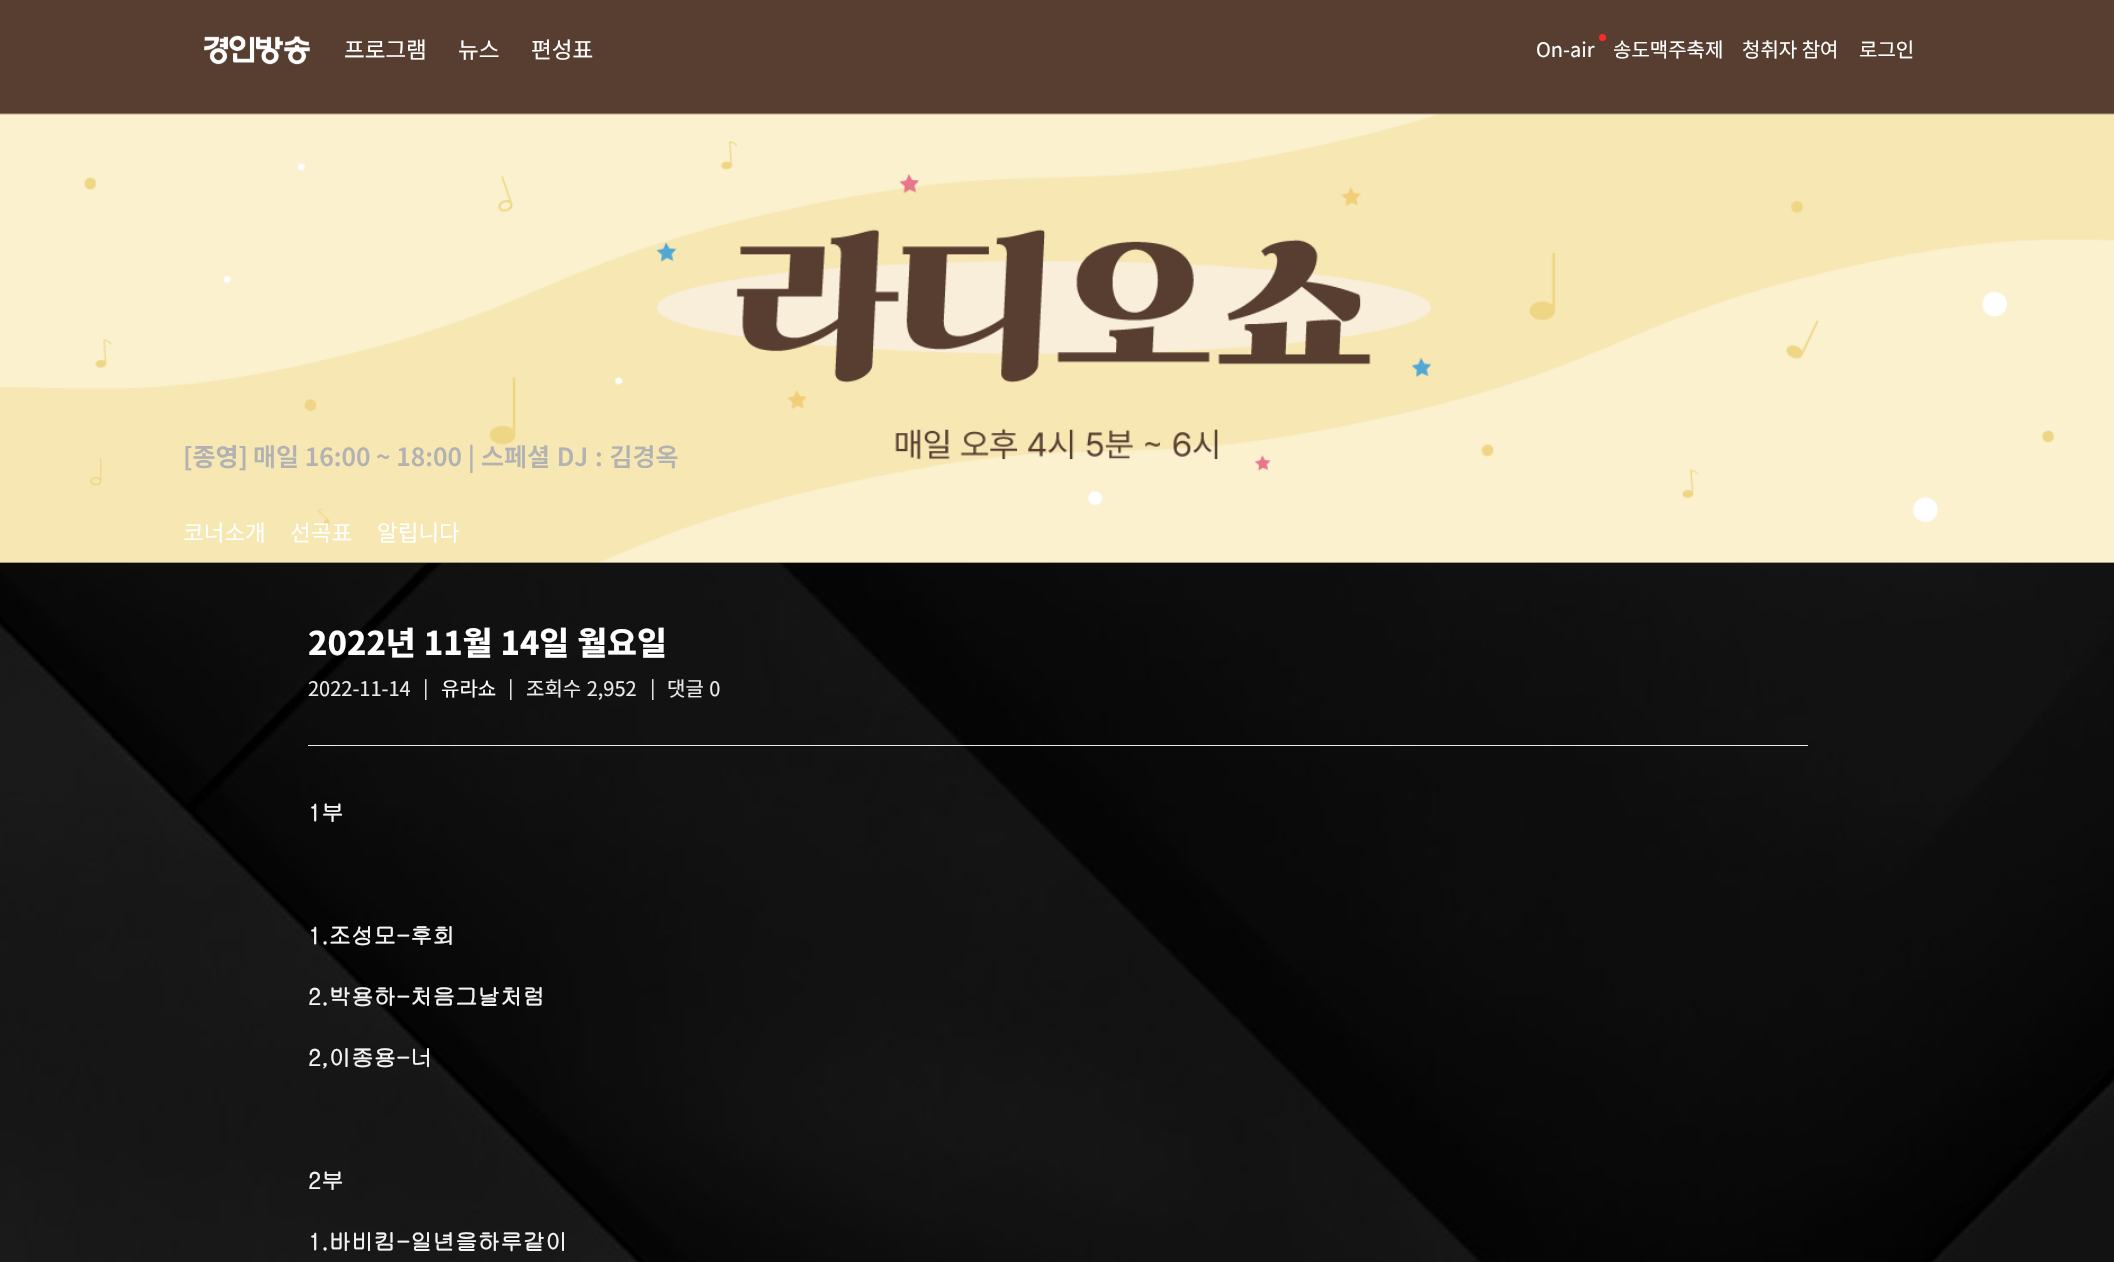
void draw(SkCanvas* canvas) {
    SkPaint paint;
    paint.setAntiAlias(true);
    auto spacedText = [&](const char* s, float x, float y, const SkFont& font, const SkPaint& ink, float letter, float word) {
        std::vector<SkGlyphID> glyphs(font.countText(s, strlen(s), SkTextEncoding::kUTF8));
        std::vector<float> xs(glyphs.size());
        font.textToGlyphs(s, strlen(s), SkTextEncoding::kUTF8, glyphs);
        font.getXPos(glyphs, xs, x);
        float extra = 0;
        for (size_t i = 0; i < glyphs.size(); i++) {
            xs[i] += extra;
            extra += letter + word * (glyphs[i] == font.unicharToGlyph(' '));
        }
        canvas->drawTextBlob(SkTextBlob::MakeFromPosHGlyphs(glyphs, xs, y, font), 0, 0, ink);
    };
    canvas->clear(0xFFFFFFFF);
    canvas->drawImageRect(SkImages::DeferredFromEncodedData(SkData::MakeFromFileName("img1.png")), SkRect::MakeXYWH(0, 563, 2114, 699), SkSamplingOptions());
    paint.setColor(0xFF4B4C4B);
    canvas->drawRect(SkRect::MakeXYWH(0, 562, 2114, 1), paint);
    canvas->drawImageRect(SkImages::DeferredFromEncodedData(SkData::MakeFromFileName("img2.png")), SkRect::MakeXYWH(0, 0, 2114, 563), SkSamplingOptions());
    canvas->drawImageRect(SkImages::DeferredFromEncodedData(SkData::MakeFromFileName("img3.png")), SkRect::MakeXYWH(204, 35, 106, 30), SkSamplingOptions());
    SkFont font1(fontMgr->matchFamilyStyle("Noto Sans KR", SkFontStyle::Normal()), 22.5f);
    font1.setSubpixel(true);
    paint.setColor(0xFFFFFFFF);
    canvas->drawString("프로그램", 344, 58, font1, paint);
    canvas->drawString("뉴스", 458, 58, font1, paint);
    canvas->drawString("편성표", 531, 58, font1, paint);
    paint.setColor(0xFFFF2929);
    canvas->drawCircle(1602.5f, 37.5f, 3.5f, paint);
    SkFont font2(fontMgr->matchFamilyStyle("Noto Sans KR", SkFontStyle::Normal()), 20);
    font2.setSubpixel(true);
    paint.setColor(0xFFFFFFFF);
    canvas->drawString("On-air", 1536, 57, font2, paint);
    canvas->drawString("송도맥주축제", 1613, 57, font2, paint);
    canvas->drawString("청취자 참여", 1742, 57, font2, paint);
    canvas->drawString("로그인", 1859, 57, font2, paint);
    SkFont font3(fontMgr->matchFamilyStyle("Noto Sans KR", SkFontStyle::Bold()), 25);
    font3.setSubpixel(true);
    paint.setColor(0xFFB2B2B2);
    canvas->drawString("[종영]", 183, 466, font3, paint);
    SkFont font4(fontMgr->matchFamilyStyle("Noto Sans KR", SkFontStyle(600, SkFontStyle::kNormal_Width, SkFontStyle::kUpright_Slant)), 25);
    font4.setSubpixel(true);
    canvas->drawString("매일 16:00 ~ 18:00 |", 253, 466, font4, paint);
    spacedText("스페셜 DJ : 김경옥", 481, 466, font4, paint, 0, 1);
    paint.setColor(0xFFFFFFFF);
    canvas->drawString("코너소개", 183, 541, font1, paint);
    canvas->drawString("선곡표", 290, 541, font1, paint);
    canvas->drawString("알립니다", 377, 541, font1, paint);
    paint.setColor(0xFFE9E9E9);
    canvas->drawRect(SkRect::MakeXYWH(308, 745, 1500, 1), paint);
    SkFont font5(fontMgr->matchFamilyStyle("Noto Sans KR", SkFontStyle(800, SkFontStyle::kNormal_Width, SkFontStyle::kUpright_Slant)), 32.5f);
    font5.setSubpixel(true);
    paint.setColor(0xFFFFFFFF);
    spacedText("2022년 11월 14일 월요일", 308, 655, font5, paint, 0, 0.5f);
    paint.setColor(0xFFE9E9E9);
    canvas->drawString("2022-11-14", 308, 696, font2, paint);
    canvas->save();
    canvas->clipRect(SkRect::MakeXYWH(308, 675, 413, 25));
    canvas->drawString("|", 423, 696, font2, paint);
    canvas->restore();
    paint.setColor(0xFFFFFFFF);
    canvas->drawString("유라쇼", 441, 696, font2, paint);
    canvas->save();
    canvas->clipRect(SkRect::MakeXYWH(308, 675, 413, 25));
    paint.setColor(0xFFE9E9E9);
    canvas->drawString("|", 508, 696, font2, paint);
    canvas->restore();
    spacedText("조회수 2,952", 526, 696, font2, paint, 0, 1);
    canvas->save();
    canvas->clipRect(SkRect::MakeXYWH(308, 675, 413, 25));
    canvas->drawString("|", 650, 696, font2, paint);
    canvas->restore();
    spacedText("댓글 0", 667, 696, font2, paint, 0, 1);
    SkFont font6(fontMgr->matchFamilyStyle("Gulim", SkFontStyle::Bold()), 22.5f);
    font6.setSubpixel(true);
    paint.setColor(0xFFF3F3F3);
    canvas->drawString("1부", 308, 821, font6, paint);
    canvas->drawString("1.조성모-후회", 308, 944, font6, paint);
    canvas->drawString("2.박용하-처음그날처럼", 308, 1005, font6, paint);
    canvas->drawString("2,이종용-너", 308, 1066, font6, paint);
    canvas->drawString("2부", 308, 1189, font6, paint);
    canvas->drawString("1.바비킴-일년을하루같이", 308, 1250, font6, paint);
}
